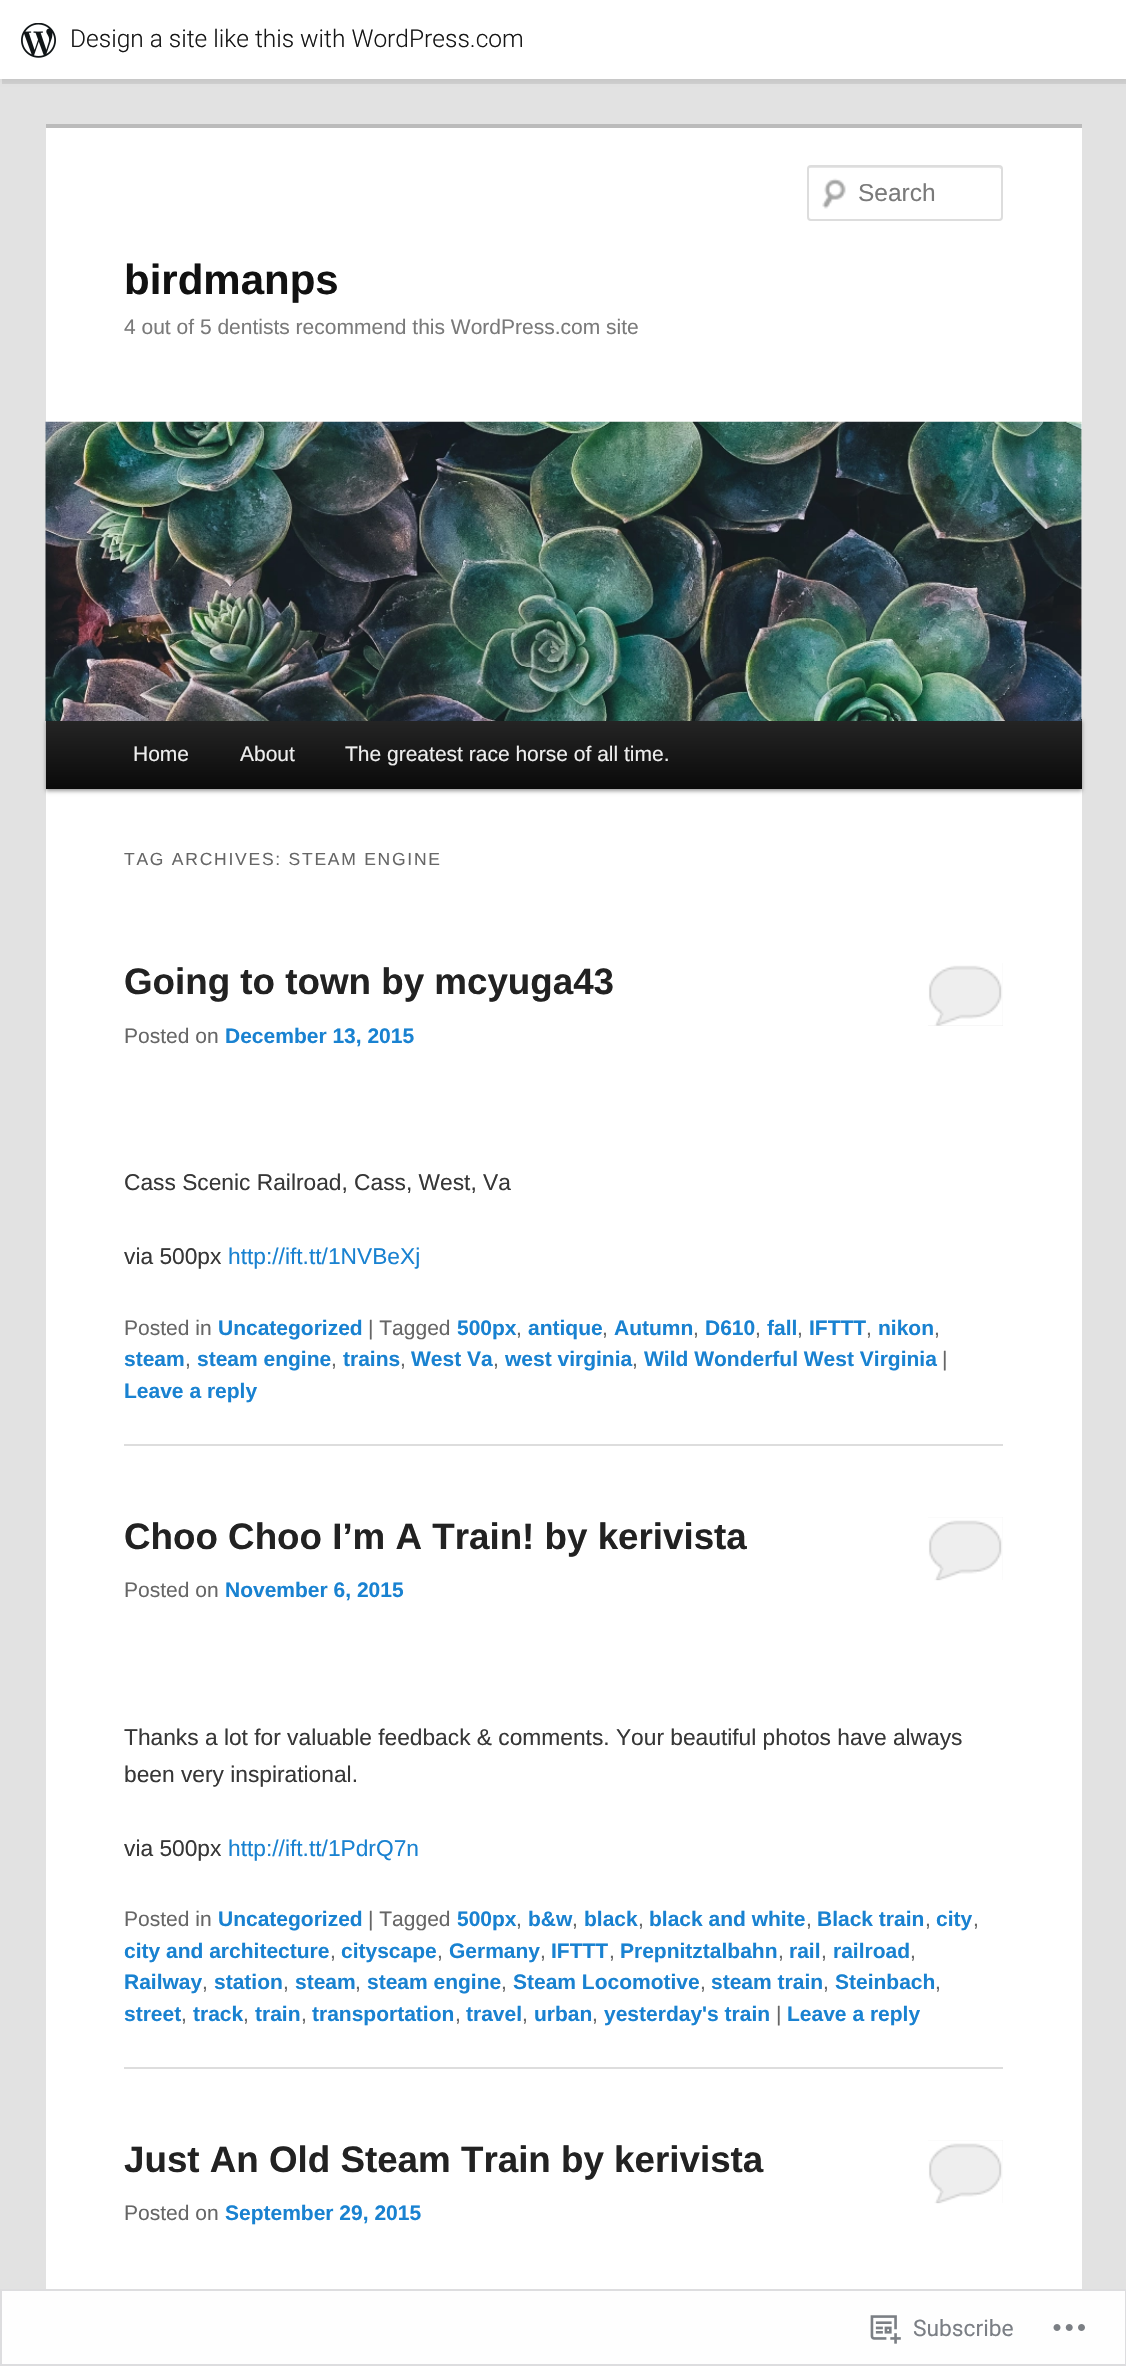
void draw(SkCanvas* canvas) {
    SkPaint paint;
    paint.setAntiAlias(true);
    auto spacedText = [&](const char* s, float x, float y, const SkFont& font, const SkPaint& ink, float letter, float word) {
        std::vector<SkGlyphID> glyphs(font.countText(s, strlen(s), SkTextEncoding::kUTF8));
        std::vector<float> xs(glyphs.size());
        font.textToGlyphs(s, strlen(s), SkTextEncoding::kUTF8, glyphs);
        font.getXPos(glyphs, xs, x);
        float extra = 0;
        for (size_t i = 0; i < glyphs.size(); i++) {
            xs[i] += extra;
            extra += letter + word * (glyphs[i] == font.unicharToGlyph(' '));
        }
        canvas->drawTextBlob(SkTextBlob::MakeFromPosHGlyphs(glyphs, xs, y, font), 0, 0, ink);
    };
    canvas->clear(0xFFE2E2E2);
    paint.setColor(0xFFFEFEFE);
    canvas->drawRect(SkRect::MakeXYWH(0, 2289, 1126, 77), paint);
    paint.setColor(0x0D000000);
    paint.setMaskFilter(SkMaskFilter::MakeBlur(kNormal_SkBlurStyle, 2));
    canvas->drawRect(SkRect::MakeXYWH(0, 2, 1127, 79), paint);
    paint.setMaskFilter(nullptr);
    paint.setColor(0x14000000);
    canvas->drawPath(SkPathBuilder().moveTo(2, 79).lineTo(2, 84).lineTo(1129, 84).lineTo(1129, 5).lineTo(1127, 5).lineTo(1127, 79).close().detach(), paint);
    paint.setColor(0xFFFFFFFF);
    canvas->drawRect(SkRect::MakeXYWH(0, 0, 1126, 79), paint);
    canvas->drawImageRect(SkImages::DeferredFromEncodedData(SkData::MakeFromFileName("img1.png")), SkRect::MakeXYWH(21, 23, 35, 35), SkSamplingOptions());
    SkFont font1(fontMgr->matchFamilyStyle("Roboto", SkFontStyle(300, SkFontStyle::kNormal_Width, SkFontStyle::kUpright_Slant)), 24.5f);
    font1.setSubpixel(true);
    paint.setColor(0xFF171717);
    canvas->drawString("Design a site like this with WordPress.com", 70, 47, font1, paint);
    paint.setColor(0xFFFFFFFF);
    canvas->drawRect(SkRect::MakeXYWH(46, 128, 1036, 2161), paint);
    paint.setColor(0xFFBBBBBB);
    canvas->drawRect(SkRect::MakeXYWH(46, 124, 1036, 4), paint);
    canvas->drawImageRect(SkImages::DeferredFromEncodedData(SkData::MakeFromFileName("img2.png")), SkRect::MakeXYWH(822, 178, 24, 31), SkSamplingOptions());
    paint.setColor(0xFFE6E6E6);
    canvas->drawPath(SkPathBuilder().moveTo(810, 168).lineTo(999, 168).lineTo(1001, 169).lineTo(1001, 170).lineTo(1001, 168).cubicTo(1001, 167, 1000, 166, 999, 166).lineTo(811, 166).cubicTo(810, 166, 809, 167, 809, 168).close().detach(), paint);
    paint.setStyle(SkPaint::kStroke_Style);
    paint.setStrokeWidth(2);
    paint.setColor(0xFFDDDDDD);
    canvas->drawRoundRect(SkRect::MakeXYWH(808, 166, 194, 54), 3, 3, paint);
    SkFont font2(fontMgr->matchFamilyStyle("Liberation Sans", SkFontStyle::Normal()), 24.5f);
    font2.setSubpixel(true);
    paint.setStyle(SkPaint::kFill_Style);
    paint.setColor(0xFF7A7A7A);
    canvas->drawString("Search", 858, 201, font2, paint);
    SkFont font3(fontMgr->matchFamilyStyle("Liberation Sans", SkFontStyle::Bold()), 42);
    font3.setSubpixel(true);
    paint.setColor(0xFF111111);
    canvas->drawString("birdmanps", 124, 294, font3, paint);
    SkFont font4(fontMgr->matchFamilyStyle("Liberation Sans", SkFontStyle::Normal()), 21);
    font4.setSubpixel(true);
    paint.setColor(0xFF7A7A7A);
    canvas->drawString("4 out of 5 dentists recommend this WordPress.com site", 124, 334, font4, paint);
    paint.setColor(0x66000000);
    paint.setMaskFilter(SkMaskFilter::MakeBlur(kNormal_SkBlurStyle, 2));
    canvas->drawRect(SkRect::MakeXYWH(46, 721, 1036, 70), paint);
    paint.setMaskFilter(nullptr);
    {
        const SkColor colors[] = {0xFF252525, 0xFF0A0A0A};
        const float stops[] = {0, 1};
        const SkPoint ends[] = {{564, 719}, {564, 789}};
        paint.setShader(SkGradientShader::MakeLinear(ends, colors, stops, 2, SkTileMode::kClamp));
        paint.setAlpha(255);
    }
    canvas->drawRect(SkRect::MakeXYWH(46, 719, 1036, 70), paint);
    canvas->drawImageRect(SkImages::DeferredFromEncodedData(SkData::MakeFromFileName("img3.png")), SkRect::MakeXYWH(45, 421, 1037, 300), SkSamplingOptions());
    paint.setShader(nullptr);
    paint.setColor(0xFFEEEEEE);
    canvas->drawString("Home", 133, 761, font4, paint);
    canvas->drawString("About", 240, 761, font4, paint);
    canvas->drawString("The greatest race horse of all time.", 345, 761, font4, paint);
    SkFont font5(fontMgr->matchFamilyStyle("Liberation Sans", SkFontStyle::Normal()), 17.5f);
    font5.setSubpixel(true);
    paint.setColor(0xFF666666);
    spacedText("TAG ARCHIVES: STEAM ENGINE", 124, 865, font5, paint, 1.75f, 0);
    paint.setColor(0xFFDDDDDD);
    canvas->drawRect(SkRect::MakeXYWH(124, 1444, 879, 2), paint);
    SkFont font6(fontMgr->matchFamilyStyle("Liberation Sans", SkFontStyle::Bold()), 36.75f);
    font6.setSubpixel(true);
    paint.setColor(0xFF222222);
    canvas->drawString("Going to town by mcyuga43", 124, 994, font6, paint);
    paint.setColor(0xFFEEEEEE);
    canvas->drawRect(SkRect::MakeXYWH(928, 963, 75, 63), paint);
    canvas->drawImageRect(SkImages::DeferredFromEncodedData(SkData::MakeFromFileName("img4.png")), SkRect::MakeXYWH(928, 963, 75, 63), SkSamplingOptions());
    paint.setColor(0xFF666666);
    canvas->drawString("Posted on", 124, 1043, font4, paint);
    SkFont font7(fontMgr->matchFamilyStyle("Liberation Sans", SkFontStyle::Bold()), 21);
    font7.setSubpixel(true);
    paint.setColor(0xFF1982D1);
    canvas->drawString("December 13, 2015", 225, 1043, font7, paint);
    SkFont font8(fontMgr->matchFamilyStyle("Liberation Sans", SkFontStyle::Normal()), 22.75f);
    font8.setSubpixel(true);
    paint.setColor(0xFF373737);
    canvas->drawString("Cass Scenic Railroad, Cass, West, Va", 124, 1190, font8, paint);
    canvas->drawString("via 500px", 124, 1264, font8, paint);
    paint.setColor(0xFF1982D1);
    canvas->drawString("http://ift.tt/1NVBeXj", 228, 1264, font8, paint);
    paint.setColor(0xFF666666);
    canvas->drawString("Posted in", 124, 1335, font4, paint);
    paint.setColor(0xFF1982D1);
    canvas->drawString("Uncategorized", 218, 1335, font7, paint);
    paint.setColor(0xFF666666);
    canvas->drawString("| Tagged", 368, 1335, font4, paint);
    paint.setColor(0xFF1982D1);
    canvas->drawString("500px", 457, 1335, font7, paint);
    paint.setColor(0xFF666666);
    canvas->drawString(",", 516, 1335, font4, paint);
    paint.setColor(0xFF1982D1);
    canvas->drawString("antique", 528, 1335, font7, paint);
    paint.setColor(0xFF666666);
    canvas->drawString(",", 602, 1335, font4, paint);
    paint.setColor(0xFF1982D1);
    canvas->drawString("Autumn", 614, 1335, font7, paint);
    paint.setColor(0xFF666666);
    canvas->drawString(",", 693, 1335, font4, paint);
    paint.setColor(0xFF1982D1);
    canvas->drawString("D610", 705, 1335, font7, paint);
    paint.setColor(0xFF666666);
    canvas->drawString(",", 755, 1335, font4, paint);
    paint.setColor(0xFF1982D1);
    canvas->drawString("fall", 767, 1335, font7, paint);
    paint.setColor(0xFF666666);
    canvas->drawString(",", 797, 1335, font4, paint);
    paint.setColor(0xFF1982D1);
    canvas->drawString("IFTTT", 809, 1335, font7, paint);
    paint.setColor(0xFF666666);
    canvas->drawString(",", 866, 1335, font4, paint);
    paint.setColor(0xFF1982D1);
    canvas->drawString("nikon", 878, 1335, font7, paint);
    paint.setColor(0xFF666666);
    canvas->drawString(",", 934, 1335, font4, paint);
    paint.setColor(0xFF1982D1);
    canvas->drawString("steam", 124, 1366, font7, paint);
    paint.setColor(0xFF666666);
    canvas->drawString(",", 185, 1366, font4, paint);
    paint.setColor(0xFF1982D1);
    canvas->drawString("steam engine", 197, 1366, font7, paint);
    paint.setColor(0xFF666666);
    canvas->drawString(",", 331, 1366, font4, paint);
    paint.setColor(0xFF1982D1);
    canvas->drawString("trains", 343, 1366, font7, paint);
    paint.setColor(0xFF666666);
    canvas->drawString(",", 400, 1366, font4, paint);
    paint.setColor(0xFF1982D1);
    canvas->drawString("West Va", 411, 1366, font7, paint);
    paint.setColor(0xFF666666);
    canvas->drawString(",", 493, 1366, font4, paint);
    paint.setColor(0xFF1982D1);
    canvas->drawString("west virginia", 505, 1366, font7, paint);
    paint.setColor(0xFF666666);
    canvas->drawString(",", 632, 1366, font4, paint);
    paint.setColor(0xFF1982D1);
    canvas->drawString("Wild Wonderful West Virginia", 644, 1366, font7, paint);
    paint.setColor(0xFF666666);
    canvas->drawString("|", 942, 1366, font4, paint);
    paint.setColor(0xFF1982D1);
    canvas->drawString("Leave a reply", 124, 1398, font7, paint);
    paint.setColor(0xFFDDDDDD);
    canvas->drawRect(SkRect::MakeXYWH(124, 2067, 879, 2), paint);
    paint.setColor(0xFF222222);
    canvas->drawString("Choo Choo I’m A Train! by kerivista", 124, 1549, font6, paint);
    paint.setColor(0xFFEEEEEE);
    canvas->drawRect(SkRect::MakeXYWH(928, 1517, 75, 63), paint);
    canvas->drawImageRect(SkImages::DeferredFromEncodedData(SkData::MakeFromFileName("img5.png")), SkRect::MakeXYWH(928, 1517, 75, 64), SkSamplingOptions());
    paint.setColor(0xFF666666);
    canvas->drawString("Posted on", 124, 1597, font4, paint);
    paint.setColor(0xFF1982D1);
    canvas->drawString("November 6, 2015", 225, 1597, font7, paint);
    paint.setColor(0xFF373737);
    canvas->drawString("Thanks a lot for valuable feedback & comments. Your beautiful photos have always", 124, 1745, font8, paint);
    canvas->drawString("been very inspirational.", 124, 1782, font8, paint);
    canvas->drawString("via 500px", 124, 1856, font8, paint);
    paint.setColor(0xFF1982D1);
    canvas->drawString("http://ift.tt/1PdrQ7n", 228, 1856, font8, paint);
    paint.setColor(0xFF666666);
    canvas->drawString("Posted in", 124, 1926, font4, paint);
    paint.setColor(0xFF1982D1);
    canvas->drawString("Uncategorized", 218, 1926, font7, paint);
    paint.setColor(0xFF666666);
    canvas->drawString("| Tagged", 368, 1926, font4, paint);
    paint.setColor(0xFF1982D1);
    canvas->drawString("500px", 457, 1926, font7, paint);
    paint.setColor(0xFF666666);
    canvas->drawString(",", 516, 1926, font4, paint);
    paint.setColor(0xFF1982D1);
    canvas->drawString("b&w", 528, 1926, font7, paint);
    paint.setColor(0xFF666666);
    canvas->drawString(",", 572, 1926, font4, paint);
    paint.setColor(0xFF1982D1);
    canvas->drawString("black", 584, 1926, font7, paint);
    paint.setColor(0xFF666666);
    canvas->drawString(",", 638, 1926, font4, paint);
    paint.setColor(0xFF1982D1);
    canvas->drawString("black and white", 649, 1926, font7, paint);
    paint.setColor(0xFF666666);
    canvas->drawString(",", 806, 1926, font4, paint);
    paint.setColor(0xFF1982D1);
    canvas->drawString("Black train", 817, 1926, font7, paint);
    paint.setColor(0xFF666666);
    canvas->drawString(",", 925, 1926, font4, paint);
    paint.setColor(0xFF1982D1);
    canvas->drawString("city", 936, 1926, font7, paint);
    paint.setColor(0xFF666666);
    canvas->drawString(",", 973, 1926, font4, paint);
    paint.setColor(0xFF1982D1);
    canvas->drawString("city and architecture", 124, 1958, font7, paint);
    paint.setColor(0xFF666666);
    canvas->drawString(",", 330, 1958, font4, paint);
    paint.setColor(0xFF1982D1);
    canvas->drawString("cityscape", 341, 1958, font7, paint);
    paint.setColor(0xFF666666);
    canvas->drawString(",", 437, 1958, font4, paint);
    paint.setColor(0xFF1982D1);
    canvas->drawString("Germany", 449, 1958, font7, paint);
    paint.setColor(0xFF666666);
    canvas->drawString(",", 540, 1958, font4, paint);
    paint.setColor(0xFF1982D1);
    canvas->drawString("IFTTT", 551, 1958, font7, paint);
    paint.setColor(0xFF666666);
    canvas->drawString(",", 609, 1958, font4, paint);
    paint.setColor(0xFF1982D1);
    canvas->drawString("Prepnitztalbahn", 620, 1958, font7, paint);
    paint.setColor(0xFF666666);
    canvas->drawString(",", 778, 1958, font4, paint);
    paint.setColor(0xFF1982D1);
    canvas->drawString("rail", 789, 1958, font7, paint);
    paint.setColor(0xFF666666);
    canvas->drawString(",", 821, 1958, font4, paint);
    paint.setColor(0xFF1982D1);
    canvas->drawString("railroad", 833, 1958, font7, paint);
    paint.setColor(0xFF666666);
    canvas->drawString(",", 910, 1958, font4, paint);
    paint.setColor(0xFF1982D1);
    canvas->drawString("Railway", 124, 1989, font7, paint);
    paint.setColor(0xFF666666);
    canvas->drawString(",", 202, 1989, font4, paint);
    paint.setColor(0xFF1982D1);
    canvas->drawString("station", 214, 1989, font7, paint);
    paint.setColor(0xFF666666);
    canvas->drawString(",", 283, 1989, font4, paint);
    paint.setColor(0xFF1982D1);
    canvas->drawString("steam", 295, 1989, font7, paint);
    paint.setColor(0xFF666666);
    canvas->drawString(",", 355, 1989, font4, paint);
    paint.setColor(0xFF1982D1);
    canvas->drawString("steam engine", 367, 1989, font7, paint);
    paint.setColor(0xFF666666);
    canvas->drawString(",", 501, 1989, font4, paint);
    paint.setColor(0xFF1982D1);
    canvas->drawString("Steam Locomotive", 513, 1989, font7, paint);
    paint.setColor(0xFF666666);
    canvas->drawString(",", 700, 1989, font4, paint);
    paint.setColor(0xFF1982D1);
    canvas->drawString("steam train", 711, 1989, font7, paint);
    paint.setColor(0xFF666666);
    canvas->drawString(",", 823, 1989, font4, paint);
    paint.setColor(0xFF1982D1);
    canvas->drawString("Steinbach", 835, 1989, font7, paint);
    paint.setColor(0xFF666666);
    canvas->drawString(",", 935, 1989, font4, paint);
    paint.setColor(0xFF1982D1);
    canvas->drawString("street", 124, 2021, font7, paint);
    paint.setColor(0xFF666666);
    canvas->drawString(",", 181, 2021, font4, paint);
    paint.setColor(0xFF1982D1);
    canvas->drawString("track", 193, 2021, font7, paint);
    paint.setColor(0xFF666666);
    canvas->drawString(",", 243, 2021, font4, paint);
    paint.setColor(0xFF1982D1);
    canvas->drawString("train", 255, 2021, font7, paint);
    paint.setColor(0xFF666666);
    canvas->drawString(",", 301, 2021, font4, paint);
    paint.setColor(0xFF1982D1);
    canvas->drawString("transportation", 312, 2021, font7, paint);
    paint.setColor(0xFF666666);
    canvas->drawString(",", 455, 2021, font4, paint);
    paint.setColor(0xFF1982D1);
    canvas->drawString("travel", 466, 2021, font7, paint);
    paint.setColor(0xFF666666);
    canvas->drawString(",", 522, 2021, font4, paint);
    paint.setColor(0xFF1982D1);
    canvas->drawString("urban", 534, 2021, font7, paint);
    paint.setColor(0xFF666666);
    canvas->drawString(",", 592, 2021, font4, paint);
    paint.setColor(0xFF1982D1);
    canvas->drawString("yesterday's train", 604, 2021, font7, paint);
    paint.setColor(0xFF666666);
    canvas->drawString("|", 776, 2021, font4, paint);
    paint.setColor(0xFF1982D1);
    canvas->drawString("Leave a reply", 787, 2021, font7, paint);
    paint.setColor(0xFF222222);
    canvas->drawString("Just An Old Steam Train by kerivista", 124, 2172, font6, paint);
    paint.setColor(0xFFEEEEEE);
    canvas->drawRect(SkRect::MakeXYWH(928, 2140, 75, 63), paint);
    canvas->drawImageRect(SkImages::DeferredFromEncodedData(SkData::MakeFromFileName("img5.png")), SkRect::MakeXYWH(928, 2140, 75, 64), SkSamplingOptions());
    paint.setColor(0xFF666666);
    canvas->drawString("Posted on", 124, 2220, font4, paint);
    paint.setColor(0xFF1982D1);
    canvas->drawString("September 29, 2015", 225, 2220, font7, paint);
    paint.setStyle(SkPaint::kStroke_Style);
    paint.setColor(0xFADCDCDE);
    canvas->drawRect(SkRect::MakeXYWH(1, 2290, 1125, 75), paint);
    canvas->drawImageRect(SkImages::DeferredFromEncodedData(SkData::MakeFromFileName("img6.png")), SkRect::MakeXYWH(870, 2315, 31, 29), SkSamplingOptions());
    SkFont font9(fontMgr->matchFamilyStyle("Roboto", SkFontStyle::Normal()), 22.75f);
    font9.setSubpixel(true);
    paint.setStyle(SkPaint::kFill_Style);
    paint.setColor(0xFF7B7F85);
    canvas->drawString("Subscribe", 913, 2336, font9, paint);
    canvas->drawImageRect(SkImages::DeferredFromEncodedData(SkData::MakeFromFileName("img7.png")), SkRect::MakeXYWH(1053, 2324, 32, 7), SkSamplingOptions());
}
